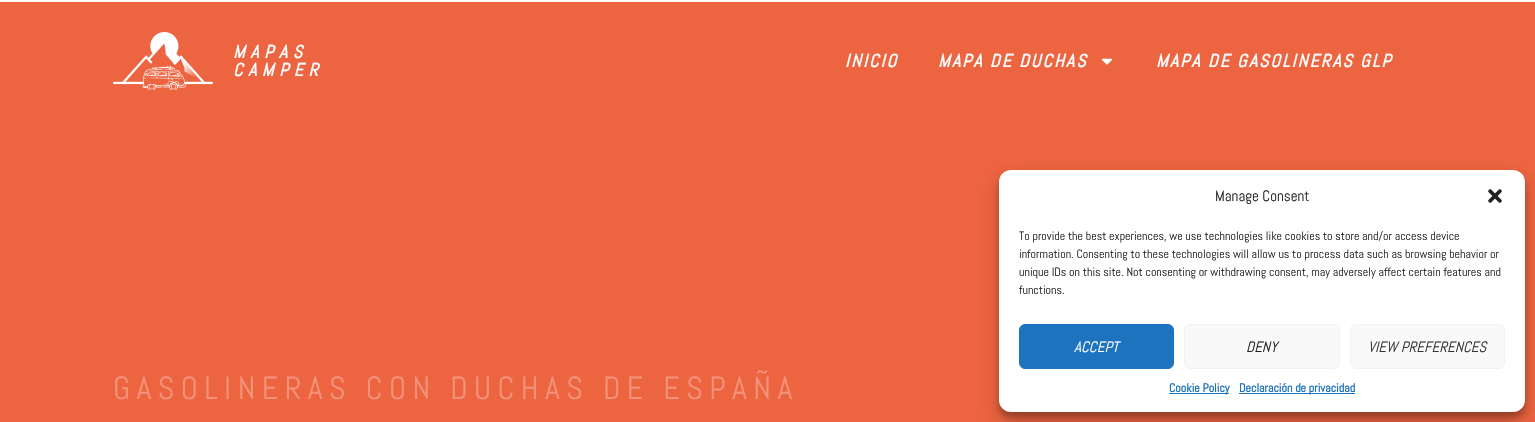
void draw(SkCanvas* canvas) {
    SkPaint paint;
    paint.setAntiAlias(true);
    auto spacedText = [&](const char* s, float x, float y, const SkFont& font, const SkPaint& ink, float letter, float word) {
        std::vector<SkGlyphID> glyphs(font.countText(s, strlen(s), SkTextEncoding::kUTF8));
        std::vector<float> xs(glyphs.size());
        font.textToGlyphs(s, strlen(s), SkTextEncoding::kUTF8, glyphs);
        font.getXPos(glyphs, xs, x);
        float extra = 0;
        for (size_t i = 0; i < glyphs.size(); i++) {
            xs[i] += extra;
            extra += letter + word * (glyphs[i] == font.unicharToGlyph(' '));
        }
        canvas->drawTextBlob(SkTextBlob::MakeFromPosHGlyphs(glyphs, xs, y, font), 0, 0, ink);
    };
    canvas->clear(0xFFFFFFFF);
    paint.setColor(0xFFED6440);
    canvas->drawRect(SkRect::MakeXYWH(0, 2, 1535, 420), paint);
    canvas->drawImageRect(SkImages::DeferredFromEncodedData(SkData::MakeFromFileName("img1.png")), SkRect::MakeXYWH(113, 32, 100, 58), SkSamplingOptions());
    SkFont font1(fontMgr->matchFamilyStyle("Abel", SkFontStyle::BoldItalic()), 18);
    font1.setSubpixel(true);
    paint.setColor(0xFFFFFFFF);
    spacedText("MAPAS", 233, 58, font1, paint, 5.5f, 0);
    spacedText("CAMPER", 233, 76, font1, paint, 5.5f, 0);
    spacedText("INICIO", 845, 67, font1, paint, 2, 0);
    spacedText("MAPA DE DUCHAS", 938, 67, font1, paint, 2, 0);
    canvas->drawImageRect(SkImages::DeferredFromEncodedData(SkData::MakeFromFileName("img2.png")), SkRect::MakeXYWH(1101, 58, 12, 7), SkSamplingOptions());
    spacedText("MAPA DE GASOLINERAS GLP", 1156, 67, font1, paint, 2, 0);
    SkFont font2(fontMgr->matchFamilyStyle("Abel", SkFontStyle::Normal()), 32);
    font2.setSubpixel(true);
    paint.setColor(0xFFF29379);
    spacedText("GASOLINERAS CON DUCHAS DE ESPAÑA", 113, 399, font2, paint, 6.4f, 0);
    paint.setColor(0x3B000000);
    paint.setMaskFilter(SkMaskFilter::MakeBlur(kNormal_SkBlurStyle, 3));
    canvas->drawRoundRect(SkRect::MakeXYWH(999, 176, 526, 242), 12, 12, paint);
    paint.setMaskFilter(nullptr);
    paint.setColor(0x30000000);
    paint.setMaskFilter(SkMaskFilter::MakeBlur(kNormal_SkBlurStyle, 10));
    canvas->drawRoundRect(SkRect::MakeXYWH(999, 180, 526, 242), 12, 12, paint);
    paint.setMaskFilter(nullptr);
    paint.setColor(0xFFFFFFFF);
    canvas->drawRoundRect(SkRect::MakeXYWH(999, 170, 526, 242), 12, 12, paint);
    SkFont font3(fontMgr->matchFamilyStyle("Abel", SkFontStyle::Normal()), 15);
    font3.setSubpixel(true);
    paint.setColor(0xFF222222);
    canvas->drawString("Manage Consent", 1215, 201, font3, paint);
    canvas->drawImageRect(SkImages::DeferredFromEncodedData(SkData::MakeFromFileName("img3.png")), SkRect::MakeXYWH(1488, 189, 14, 14), SkSamplingOptions());
    SkFont font4(fontMgr->matchFamilyStyle("Abel", SkFontStyle::Normal()), 12);
    font4.setSubpixel(true);
    canvas->drawString("To provide the best experiences, we use technologies like cookies to store and/or access device", 1019, 240, font4, paint);
    canvas->drawString("information. Consenting to these technologies will allow us to process data such as browsing behavior or", 1019, 258, font4, paint);
    canvas->drawString("unique IDs on this site. Not consenting or withdrawing consent, may adversely affect certain features and", 1019, 276, font4, paint);
    canvas->drawString("functions.", 1019, 294, font4, paint);
    paint.setColor(0xFF1E73BE);
    canvas->drawRoundRect(SkRect::MakeXYWH(1019.5f, 324.5f, 154, 44), 5.5f, 5.5f, paint);
    paint.setStyle(SkPaint::kStroke_Style);
    paint.setStrokeWidth(1);
    canvas->drawRoundRect(SkRect::MakeXYWH(1019.5f, 324.5f, 154, 44), 5.5f, 5.5f, paint);
    SkFont font5(fontMgr->matchFamilyStyle("Abel", SkFontStyle::Italic()), 15);
    font5.setSubpixel(true);
    paint.setStyle(SkPaint::kFill_Style);
    paint.setColor(0xFFFFFFFF);
    canvas->drawString("ACCEPT", 1074, 352, font5, paint);
    paint.setColor(0xFFF9F9F9);
    canvas->drawRoundRect(SkRect::MakeXYWH(1184.5f, 324.5f, 155, 44), 5.5f, 5.5f, paint);
    paint.setStyle(SkPaint::kStroke_Style);
    paint.setColor(0xFFF2F2F2);
    canvas->drawRoundRect(SkRect::MakeXYWH(1184.5f, 324.5f, 155, 44), 5.5f, 5.5f, paint);
    paint.setStyle(SkPaint::kFill_Style);
    paint.setColor(0xFF222222);
    canvas->drawString("DENY", 1246, 352, font5, paint);
    paint.setColor(0xFFF9F9F9);
    canvas->drawRoundRect(SkRect::MakeXYWH(1350.5f, 324.5f, 154, 44), 5.5f, 5.5f, paint);
    paint.setStyle(SkPaint::kStroke_Style);
    paint.setColor(0xFFF2F2F2);
    canvas->drawRoundRect(SkRect::MakeXYWH(1350.5f, 324.5f, 154, 44), 5.5f, 5.5f, paint);
    paint.setStyle(SkPaint::kFill_Style);
    paint.setColor(0xFF333333);
    canvas->drawString("VIEW PREFERENCES", 1368, 352, font5, paint);
    paint.setColor(0xFF1E73BE);
    canvas->drawRect(SkRect::MakeXYWH(1169, 393, 60, 1), paint);
    SkFont font6(fontMgr->matchFamilyStyle("Abel", SkFontStyle::Bold()), 12);
    font6.setSubpixel(true);
    canvas->drawString("Cookie Policy", 1169, 392, font6, paint);
    canvas->drawRect(SkRect::MakeXYWH(1239, 393, 116, 1), paint);
    canvas->drawString("Declaración de privacidad", 1239, 392, font6, paint);
}
